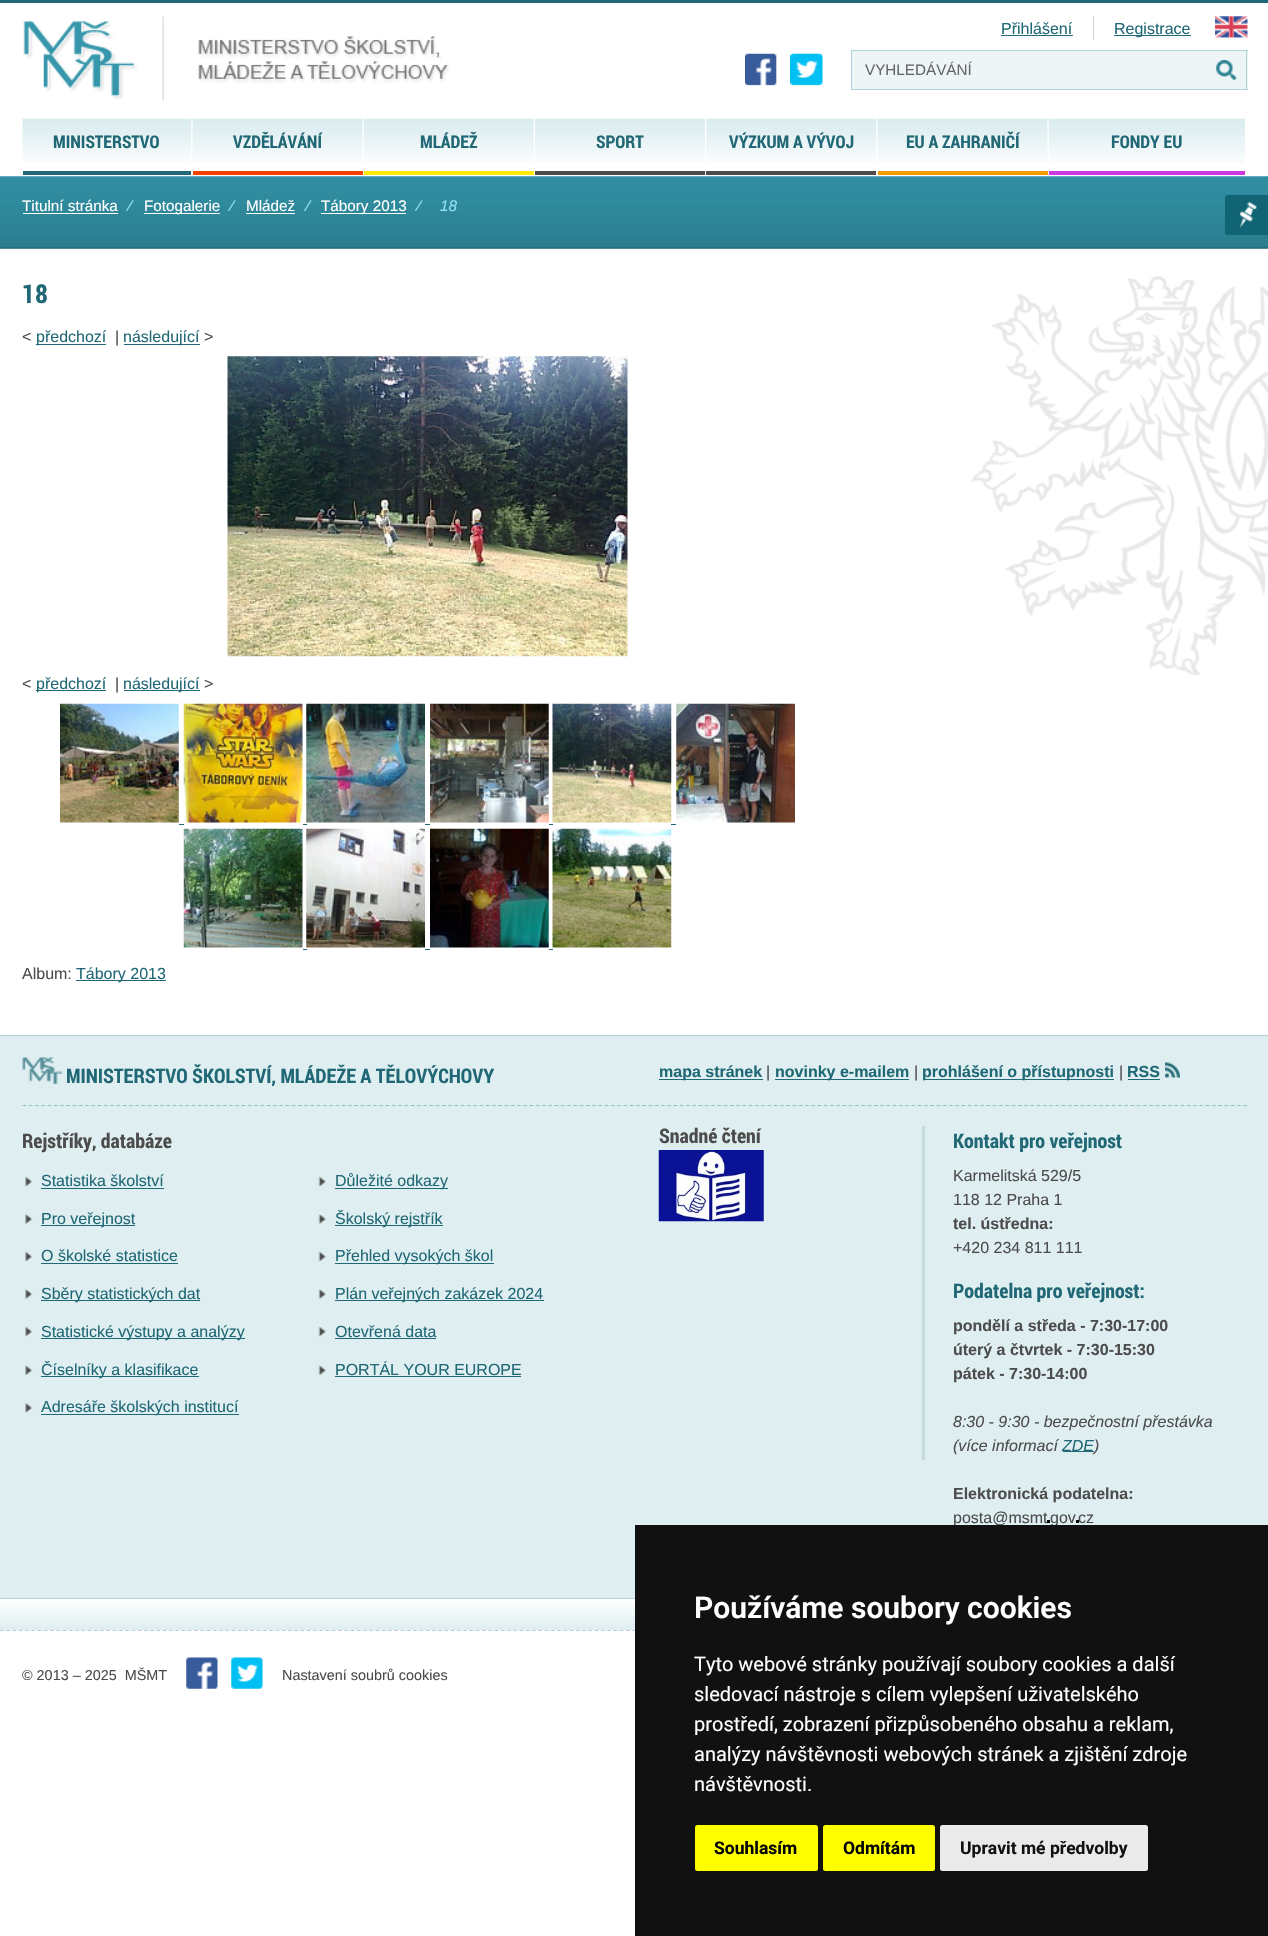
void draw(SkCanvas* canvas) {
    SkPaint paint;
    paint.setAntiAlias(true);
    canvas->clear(0xFFFFFFFF);
    paint.setColor(0xFF206875);
    canvas->drawRect(SkRect::MakeXYWH(0, 0, 1268, 3), paint);
    canvas->drawImageRect(SkImages::DeferredFromEncodedData(SkData::MakeFromFileName("img1.png")), SkRect::MakeXYWH(0, 176, 1268, 73), SkSamplingOptions());
    canvas->drawImageRect(SkImages::DeferredFromEncodedData(SkData::MakeFromFileName("img2.png")), SkRect::MakeXYWH(971, 276, 297, 399), SkSamplingOptions());
    canvas->drawImageRect(SkImages::DeferredFromEncodedData(SkData::MakeFromFileName("img3.png")), SkRect::MakeXYWH(23, 16, 426, 84), SkSamplingOptions());
    SkFont font1(fontMgr->matchFamilyStyle("Liberation Sans", SkFontStyle::Normal()), 16);
    font1.setSubpixel(true);
    canvas->drawString("Přihlášení", 1001, 34, font1, paint);
    canvas->drawRect(SkRect::MakeXYWH(1001, 35, 72, 1), paint);
    paint.setColor(0xFFD1D1D1);
    canvas->drawRect(SkRect::MakeXYWH(1093, 16, 1, 24), paint);
    paint.setColor(0xFF206875);
    canvas->drawRect(SkRect::MakeXYWH(1114, 35, 77, 1), paint);
    canvas->drawString("Registrace", 1114, 34, font1, paint);
    canvas->drawImageRect(SkImages::DeferredFromEncodedData(SkData::MakeFromFileName("img4.png")), SkRect::MakeXYWH(1215, 16, 33, 22), SkSamplingOptions());
    canvas->drawImageRect(SkImages::DeferredFromEncodedData(SkData::MakeFromFileName("img5.png")), SkRect::MakeXYWH(745, 53, 32, 33), SkSamplingOptions());
    canvas->drawImageRect(SkImages::DeferredFromEncodedData(SkData::MakeFromFileName("img6.png")), SkRect::MakeXYWH(790, 53, 33, 33), SkSamplingOptions());
    paint.setColor(0xFFEDF5F6);
    canvas->drawRect(SkRect::MakeXYWH(852, 51, 396, 38), paint);
    paint.setColor(0xFFB0D1D7);
    canvas->drawRect(SkRect::MakeXYWH(851, 50, 397, 1), paint);
    canvas->drawRect(SkRect::MakeXYWH(851, 89, 357, 1), paint);
    canvas->drawRect(SkRect::MakeXYWH(851, 50, 1, 40), paint);
    SkFont font2(fontMgr->matchFamilyStyle("Liberation Sans", SkFontStyle::Normal()), 15.25f);
    font2.setSubpixel(true);
    paint.setColor(0xFF666666);
    canvas->drawString("VYHLEDÁVÁNÍ", 865, 75, font2, paint);
    canvas->drawImageRect(SkImages::DeferredFromEncodedData(SkData::MakeFromFileName("img7.png")), SkRect::MakeXYWH(1216, 60, 21, 20), SkSamplingOptions());
    paint.setColor(0xFFB0D1D7);
    canvas->drawRect(SkRect::MakeXYWH(1246, 50, 1, 40), paint);
    canvas->drawRect(SkRect::MakeXYWH(1208, 89, 40, 1), paint);
    canvas->drawImageRect(SkImages::DeferredFromEncodedData(SkData::MakeFromFileName("img8.png")), SkRect::MakeXYWH(22, 118, 170, 45), SkSamplingOptions());
    paint.setColor(0xFF206875);
    canvas->drawRect(SkRect::MakeXYWH(23, 171, 168, 4), paint);
    SkFont font3(fontMgr->matchFamilyStyle("Roboto Condensed", SkFontStyle::Bold()), 17.5f);
    font3.setSubpixel(true);
    canvas->drawString("MINISTERSTVO", 53, 148, font3, paint);
    canvas->drawImageRect(SkImages::DeferredFromEncodedData(SkData::MakeFromFileName("img9.png")), SkRect::MakeXYWH(192, 118, 171, 45), SkSamplingOptions());
    paint.setColor(0xFFF34100);
    canvas->drawRect(SkRect::MakeXYWH(193, 171, 170, 4), paint);
    paint.setColor(0xFF206875);
    canvas->drawString("VZDĚLÁVÁNÍ", 233, 148, font3, paint);
    canvas->drawImageRect(SkImages::DeferredFromEncodedData(SkData::MakeFromFileName("img10.png")), SkRect::MakeXYWH(363, 118, 171, 45), SkSamplingOptions());
    paint.setColor(0xFFFFEA00);
    canvas->drawRect(SkRect::MakeXYWH(364, 171, 170, 4), paint);
    paint.setColor(0xFF206875);
    canvas->drawString("MLÁDEŽ", 420, 148, font3, paint);
    canvas->drawImageRect(SkImages::DeferredFromEncodedData(SkData::MakeFromFileName("img11.png")), SkRect::MakeXYWH(535, 118, 170, 45), SkSamplingOptions());
    paint.setColor(0xFF4C4C4C);
    canvas->drawRect(SkRect::MakeXYWH(535, 171, 170, 4), paint);
    paint.setColor(0xFF206875);
    canvas->drawString("SPORT", 596, 148, font3, paint);
    canvas->drawImageRect(SkImages::DeferredFromEncodedData(SkData::MakeFromFileName("img12.png")), SkRect::MakeXYWH(706, 118, 171, 45), SkSamplingOptions());
    paint.setColor(0xFF4C4C4C);
    canvas->drawRect(SkRect::MakeXYWH(706, 171, 170, 4), paint);
    paint.setColor(0xFF206875);
    canvas->drawString("VÝZKUM A VÝVOJ", 729, 148, font3, paint);
    canvas->drawImageRect(SkImages::DeferredFromEncodedData(SkData::MakeFromFileName("img9.png")), SkRect::MakeXYWH(877, 118, 171, 45), SkSamplingOptions());
    paint.setColor(0xFFF59C00);
    canvas->drawRect(SkRect::MakeXYWH(878, 171, 170, 4), paint);
    paint.setColor(0xFF206875);
    canvas->drawString("EU A ZAHRANIČÍ", 906, 148, font3, paint);
    canvas->drawImageRect(SkImages::DeferredFromEncodedData(SkData::MakeFromFileName("img13.png")), SkRect::MakeXYWH(1048, 118, 197, 45), SkSamplingOptions());
    paint.setColor(0xFFCC37DE);
    canvas->drawRect(SkRect::MakeXYWH(1049, 171, 196, 4), paint);
    paint.setColor(0xFF206875);
    canvas->drawString("FONDY EU", 1111, 148, font3, paint);
    canvas->drawImageRect(SkImages::DeferredFromEncodedData(SkData::MakeFromFileName("img14.png")), SkRect::MakeXYWH(1225, 195, 43, 40), SkSamplingOptions());
    paint.setColor(0xFFFFFFFF);
    canvas->drawString("Titulní stránka", 22, 211, font2, paint);
    canvas->drawRect(SkRect::MakeXYWH(23, 213, 95, 1), paint);
    paint.setColor(0xFF92E0F1);
    canvas->drawString("⁄", 129, 211, font2, paint);
    paint.setColor(0xFFFFFFFF);
    canvas->drawRect(SkRect::MakeXYWH(144, 213, 76, 1), paint);
    canvas->drawString("Fotogalerie", 144, 211, font2, paint);
    paint.setColor(0xFF92E0F1);
    canvas->drawString("⁄", 231, 211, font2, paint);
    paint.setColor(0xFFFFFFFF);
    canvas->drawString("Mládež", 246, 211, font2, paint);
    canvas->drawRect(SkRect::MakeXYWH(246, 213, 49, 1), paint);
    paint.setColor(0xFF92E0F1);
    canvas->drawString("⁄", 307, 211, font2, paint);
    paint.setColor(0xFFFFFFFF);
    canvas->drawRect(SkRect::MakeXYWH(321, 213, 85, 1), paint);
    canvas->drawString("Tábory 2013", 321, 211, font2, paint);
    paint.setColor(0xFF92E0F1);
    canvas->drawString("⁄", 418, 211, font2, paint);
    SkFont font4(fontMgr->matchFamilyStyle("Liberation Sans", SkFontStyle::Italic()), 15.25f);
    font4.setSubpixel(true);
    canvas->drawString("18", 440, 211, font4, paint);
    SkFont font5(fontMgr->matchFamilyStyle("Roboto Condensed", SkFontStyle::Bold()), 26);
    font5.setSubpixel(true);
    paint.setColor(0xFF206875);
    canvas->drawString("18", 22, 303, font5, paint);
    paint.setColor(0xFF4C4C4C);
    canvas->drawString("<", 22, 342, font1, paint);
    paint.setColor(0xFF206875);
    canvas->drawRect(SkRect::MakeXYWH(36, 344, 70, 1), paint);
    canvas->drawString("předchozí", 36, 342, font1, paint);
    paint.setColor(0xFF4C4C4C);
    canvas->drawString("|", 115, 342, font1, paint);
    paint.setColor(0xFF206875);
    canvas->drawRect(SkRect::MakeXYWH(124, 344, 76, 1), paint);
    canvas->drawString("následující", 123, 342, font1, paint);
    paint.setColor(0xFF4C4C4C);
    canvas->drawString(">", 204, 342, font1, paint);
    canvas->drawImageRect(SkImages::DeferredFromEncodedData(SkData::MakeFromFileName("img15.png")), SkRect::MakeXYWH(227, 356, 401, 301), SkSamplingOptions());
    canvas->drawString("<", 22, 689, font1, paint);
    paint.setColor(0xFF206875);
    canvas->drawRect(SkRect::MakeXYWH(36, 690, 70, 1), paint);
    canvas->drawString("předchozí", 36, 689, font1, paint);
    paint.setColor(0xFF4C4C4C);
    canvas->drawString("|", 115, 689, font1, paint);
    paint.setColor(0xFF206875);
    canvas->drawRect(SkRect::MakeXYWH(124, 690, 76, 1), paint);
    canvas->drawString("následující", 123, 689, font1, paint);
    paint.setColor(0xFF4C4C4C);
    canvas->drawString(">", 204, 689, font1, paint);
    canvas->drawImageRect(SkImages::DeferredFromEncodedData(SkData::MakeFromFileName("img16.png")), SkRect::MakeXYWH(60, 703, 119, 120), SkSamplingOptions());
    canvas->drawImageRect(SkImages::DeferredFromEncodedData(SkData::MakeFromFileName("img17.png")), SkRect::MakeXYWH(183, 703, 120, 120), SkSamplingOptions());
    canvas->drawImageRect(SkImages::DeferredFromEncodedData(SkData::MakeFromFileName("img18.png")), SkRect::MakeXYWH(306, 703, 119, 120), SkSamplingOptions());
    canvas->drawImageRect(SkImages::DeferredFromEncodedData(SkData::MakeFromFileName("img19.png")), SkRect::MakeXYWH(430, 703, 119, 120), SkSamplingOptions());
    canvas->drawImageRect(SkImages::DeferredFromEncodedData(SkData::MakeFromFileName("img20.png")), SkRect::MakeXYWH(552, 703, 120, 120), SkSamplingOptions());
    canvas->drawImageRect(SkImages::DeferredFromEncodedData(SkData::MakeFromFileName("img21.png")), SkRect::MakeXYWH(676, 703, 119, 120), SkSamplingOptions());
    paint.setColor(0xFF206875);
    canvas->drawRect(SkRect::MakeXYWH(179, 824, 5, 1), paint);
    canvas->drawRect(SkRect::MakeXYWH(303, 824, 4, 1), paint);
    canvas->drawRect(SkRect::MakeXYWH(425, 824, 5, 1), paint);
    canvas->drawRect(SkRect::MakeXYWH(549, 824, 4, 1), paint);
    canvas->drawRect(SkRect::MakeXYWH(671, 824, 5, 1), paint);
    canvas->drawImageRect(SkImages::DeferredFromEncodedData(SkData::MakeFromFileName("img22.png")), SkRect::MakeXYWH(183, 828, 120, 120), SkSamplingOptions());
    canvas->drawImageRect(SkImages::DeferredFromEncodedData(SkData::MakeFromFileName("img23.png")), SkRect::MakeXYWH(306, 828, 119, 120), SkSamplingOptions());
    canvas->drawImageRect(SkImages::DeferredFromEncodedData(SkData::MakeFromFileName("img24.png")), SkRect::MakeXYWH(430, 828, 119, 120), SkSamplingOptions());
    canvas->drawImageRect(SkImages::DeferredFromEncodedData(SkData::MakeFromFileName("img25.png")), SkRect::MakeXYWH(552, 828, 120, 120), SkSamplingOptions());
    canvas->drawRect(SkRect::MakeXYWH(303, 949, 4, 1), paint);
    canvas->drawRect(SkRect::MakeXYWH(425, 949, 5, 1), paint);
    canvas->drawRect(SkRect::MakeXYWH(549, 949, 4, 1), paint);
    paint.setColor(0xFF4C4C4C);
    canvas->drawString("Album:", 22, 979, font1, paint);
    paint.setColor(0xFF206875);
    canvas->drawRect(SkRect::MakeXYWH(76, 980, 90, 1), paint);
    canvas->drawString("Tábory 2013", 76, 979, font1, paint);
    paint.setColor(0xFFDEEEF1);
    canvas->drawRect(SkRect::MakeXYWH(0, 1036, 1268, 562), paint);
    paint.setColor(0xFFB2D0D6);
    canvas->drawRect(SkRect::MakeXYWH(0, 1035, 1268, 1), paint);
    paint.setColor(0xFFC5DBE0);
    canvas->drawRect(SkRect::MakeXYWH(922, 1126, 3, 334), paint);
    canvas->drawImageRect(SkImages::DeferredFromEncodedData(SkData::MakeFromFileName("img26.png")), SkRect::MakeXYWH(22, 1057, 41, 27), SkSamplingOptions());
    SkFont font6(fontMgr->matchFamilyStyle("Roboto Condensed", SkFontStyle::Bold()), 20);
    font6.setSubpixel(true);
    paint.setColor(0xFF206875);
    canvas->drawString("MINISTERSTVO ŠKOLSTVÍ, MLÁDEŽE A TĚLOVÝCHOVY", 66, 1083, font6, paint);
    canvas->drawRect(SkRect::MakeXYWH(659, 1079, 104, 1), paint);
    SkFont font7(fontMgr->matchFamilyStyle("Liberation Sans", SkFontStyle::Bold()), 16);
    font7.setSubpixel(true);
    canvas->drawString("mapa stránek", 659, 1077, font7, paint);
    paint.setColor(0xFF4C4C4C);
    canvas->drawString("|", 766, 1077, font1, paint);
    paint.setColor(0xFF206875);
    canvas->drawRect(SkRect::MakeXYWH(775, 1079, 134, 1), paint);
    canvas->drawString("novinky e-mailem", 775, 1077, font7, paint);
    paint.setColor(0xFF4C4C4C);
    canvas->drawString("|", 914, 1077, font1, paint);
    paint.setColor(0xFF206875);
    canvas->drawRect(SkRect::MakeXYWH(923, 1079, 191, 1), paint);
    canvas->drawString("prohlášení o přístupnosti", 922, 1077, font7, paint);
    paint.setColor(0xFF4C4C4C);
    canvas->drawString("|", 1119, 1077, font1, paint);
    paint.setColor(0xFF206875);
    canvas->drawString("RSS", 1127, 1077, font7, paint);
    canvas->drawRect(SkRect::MakeXYWH(1128, 1079, 32, 1), paint);
    canvas->drawImageRect(SkImages::DeferredFromEncodedData(SkData::MakeFromFileName("img27.png")), SkRect::MakeXYWH(1165, 1062, 15, 16), SkSamplingOptions());
    paint.setStyle(SkPaint::kStroke_Style);
    paint.setStrokeWidth(1.2f);
    paint.setColor(0xFF90C1CA);
    paint.setPathEffect(SkDashPathEffect::Make({{3.75f, 2.51f}}, 0));
    canvas->drawPath(SkPathBuilder().moveTo(22.5f, 1105.5f).lineTo(1247.5f, 1105.5f).detach(), paint);
    paint.setPathEffect(nullptr);
    paint.setStyle(SkPaint::kFill_Style);
    paint.setColor(0xFF4C4C4C);
    canvas->drawString("Rejstříky, databáze", 22, 1148, font6, paint);
    canvas->drawImageRect(SkImages::DeferredFromEncodedData(SkData::MakeFromFileName("img28.png")), SkRect::MakeXYWH(25, 1176, 7, 11), SkSamplingOptions());
    paint.setColor(0xFF206875);
    canvas->drawString("Statistika školství", 41, 1186, font1, paint);
    canvas->drawRect(SkRect::MakeXYWH(41, 1188, 123, 1), paint);
    canvas->drawImageRect(SkImages::DeferredFromEncodedData(SkData::MakeFromFileName("img29.png")), SkRect::MakeXYWH(25, 1213, 8, 11), SkSamplingOptions());
    canvas->drawRect(SkRect::MakeXYWH(41, 1225, 94, 1), paint);
    canvas->drawString("Pro veřejnost", 41, 1224, font1, paint);
    canvas->drawImageRect(SkImages::DeferredFromEncodedData(SkData::MakeFromFileName("img28.png")), SkRect::MakeXYWH(25, 1251, 7, 11), SkSamplingOptions());
    canvas->drawString("O školské statistice", 41, 1261, font1, paint);
    canvas->drawRect(SkRect::MakeXYWH(41, 1263, 137, 1), paint);
    canvas->drawImageRect(SkImages::DeferredFromEncodedData(SkData::MakeFromFileName("img29.png")), SkRect::MakeXYWH(25, 1288, 8, 11), SkSamplingOptions());
    canvas->drawRect(SkRect::MakeXYWH(41, 1300, 159, 1), paint);
    canvas->drawString("Sběry statistických dat", 41, 1299, font1, paint);
    canvas->drawImageRect(SkImages::DeferredFromEncodedData(SkData::MakeFromFileName("img28.png")), SkRect::MakeXYWH(25, 1326, 7, 11), SkSamplingOptions());
    canvas->drawRect(SkRect::MakeXYWH(41, 1338, 204, 1), paint);
    canvas->drawString("Statistické výstupy a analýzy", 41, 1337, font1, paint);
    canvas->drawImageRect(SkImages::DeferredFromEncodedData(SkData::MakeFromFileName("img30.png")), SkRect::MakeXYWH(25, 1365, 8, 10), SkSamplingOptions());
    canvas->drawRect(SkRect::MakeXYWH(41, 1376, 158, 1), paint);
    canvas->drawString("Číselníky a klasifikace", 41, 1375, font1, paint);
    canvas->drawImageRect(SkImages::DeferredFromEncodedData(SkData::MakeFromFileName("img31.png")), SkRect::MakeXYWH(25, 1402, 8, 11), SkSamplingOptions());
    canvas->drawRect(SkRect::MakeXYWH(41, 1414, 198, 1), paint);
    canvas->drawString("Adresáře školských institucí", 41, 1412, font1, paint);
    canvas->drawImageRect(SkImages::DeferredFromEncodedData(SkData::MakeFromFileName("img32.png")), SkRect::MakeXYWH(318, 1176, 8, 11), SkSamplingOptions());
    canvas->drawRect(SkRect::MakeXYWH(335, 1188, 113, 1), paint);
    canvas->drawString("Důležité odkazy", 335, 1186, font1, paint);
    canvas->drawImageRect(SkImages::DeferredFromEncodedData(SkData::MakeFromFileName("img33.png")), SkRect::MakeXYWH(318, 1214, 8, 10), SkSamplingOptions());
    canvas->drawRect(SkRect::MakeXYWH(335, 1225, 108, 1), paint);
    canvas->drawString("Školský rejstřík", 335, 1224, font1, paint);
    canvas->drawImageRect(SkImages::DeferredFromEncodedData(SkData::MakeFromFileName("img32.png")), SkRect::MakeXYWH(318, 1251, 8, 11), SkSamplingOptions());
    canvas->drawRect(SkRect::MakeXYWH(335, 1263, 159, 1), paint);
    canvas->drawString("Přehled vysokých škol", 335, 1261, font1, paint);
    canvas->drawImageRect(SkImages::DeferredFromEncodedData(SkData::MakeFromFileName("img33.png")), SkRect::MakeXYWH(318, 1289, 8, 10), SkSamplingOptions());
    canvas->drawRect(SkRect::MakeXYWH(335, 1300, 209, 1), paint);
    canvas->drawString("Plán veřejných zakázek 2024", 335, 1299, font1, paint);
    canvas->drawImageRect(SkImages::DeferredFromEncodedData(SkData::MakeFromFileName("img32.png")), SkRect::MakeXYWH(318, 1326, 8, 11), SkSamplingOptions());
    canvas->drawString("Otevřená data", 335, 1337, font1, paint);
    canvas->drawRect(SkRect::MakeXYWH(335, 1338, 101, 1), paint);
    canvas->drawImageRect(SkImages::DeferredFromEncodedData(SkData::MakeFromFileName("img34.png")), SkRect::MakeXYWH(318, 1365, 8, 10), SkSamplingOptions());
    canvas->drawString("PORTÁL YOUR EUROPE", 335, 1375, font1, paint);
    canvas->drawRect(SkRect::MakeXYWH(335, 1376, 186, 1), paint);
    paint.setColor(0xFF4C4C4C);
    canvas->drawString("Snadné čtení", 659, 1143, font6, paint);
    paint.setColor(0xFF206875);
    canvas->drawString("Kontakt pro veřejnost", 953, 1148, font6, paint);
    paint.setColor(0xFF4C4C4C);
    canvas->drawString("Karmelitská 529/5", 953, 1181, font1, paint);
    canvas->drawString("118 12 Praha 1", 953, 1205, font1, paint);
    canvas->drawString("tel. ústředna:", 953, 1229, font7, paint);
    canvas->drawString("+420 234 811 111", 953, 1253, font1, paint);
    paint.setColor(0xFF206875);
    canvas->drawString("Podatelna pro veřejnost:", 953, 1298, font6, paint);
    paint.setColor(0xFF4C4C4C);
    canvas->drawString("pondělí a středa - 7:30-17:00", 953, 1331, font7, paint);
    canvas->drawString("úterý a čtvrtek - 7:30-15:30", 953, 1355, font7, paint);
    canvas->drawString("pátek - 7:30-14:00", 953, 1379, font7, paint);
    SkFont font8(fontMgr->matchFamilyStyle("Liberation Sans", SkFontStyle::Italic()), 16);
    font8.setSubpixel(true);
    canvas->drawString("8:30 - 9:30 - bezpečnostní přestávka", 953, 1427, font8, paint);
    canvas->drawString("(více informací", 953, 1451, font8, paint);
    paint.setColor(0xFF206875);
    canvas->drawString("ZDE", 1062, 1451, font8, paint);
    canvas->drawRect(SkRect::MakeXYWH(1063, 1451, 31, 1), paint);
    paint.setColor(0xFF4C4C4C);
    canvas->drawString(")", 1094, 1451, font8, paint);
    canvas->drawString("Elektronická podatelna:", 953, 1499, font7, paint);
    canvas->drawString("posta@msmt", 953, 1523, font1, paint);
    canvas->drawString("gov", 1050, 1523, font1, paint);
    paint.setColor(0xFF000000);
    canvas->drawRect(SkRect::MakeXYWH(1047, 1520, 3, 3), paint);
    canvas->drawRect(SkRect::MakeXYWH(1076, 1520, 3, 3), paint);
    paint.setColor(0xFF4C4C4C);
    canvas->drawString("cz", 1078, 1523, font1, paint);
    canvas->drawImageRect(SkImages::DeferredFromEncodedData(SkData::MakeFromFileName("img35.png")), SkRect::MakeXYWH(658, 1150, 106, 72), SkSamplingOptions());
    {
        const SkColor colors[] = {0xFFFFFFFF, 0xFFDEEEF1};
        const float stops[] = {0.01f, 1};
        const SkPoint ends[] = {{634, 1599}, {634, 1630}};
        paint.setShader(SkGradientShader::MakeLinear(ends, colors, stops, 2, SkTileMode::kClamp));
        paint.setAlpha(255);
    }
    canvas->drawRect(SkRect::MakeXYWH(0, 1602, 635, 28), paint);
    paint.setShader(nullptr);
    paint.setColor(0xFFB2D0D6);
    canvas->drawRect(SkRect::MakeXYWH(0, 1598, 635, 1), paint);
    paint.setStyle(SkPaint::kStroke_Style);
    paint.setPathEffect(SkDashPathEffect::Make({{3.75f, 2.51f}}, 0));
    canvas->drawPath(SkPathBuilder().moveTo(0, 1630.5f).lineTo(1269, 1630.5f).detach(), paint);
    paint.setPathEffect(nullptr);
    SkFont font9(fontMgr->matchFamilyStyle("Liberation Sans", SkFontStyle::Normal()), 14.4f);
    font9.setSubpixel(true);
    paint.setStyle(SkPaint::kFill_Style);
    paint.setColor(0xFF4C4C4C);
    canvas->drawString("© 2013 – 2025  MŠMT", 22, 1680, font9, paint);
    canvas->drawImageRect(SkImages::DeferredFromEncodedData(SkData::MakeFromFileName("img36.png")), SkRect::MakeXYWH(186, 1657, 32, 32), SkSamplingOptions());
    canvas->drawImageRect(SkImages::DeferredFromEncodedData(SkData::MakeFromFileName("img37.png")), SkRect::MakeXYWH(231, 1657, 32, 32), SkSamplingOptions());
    canvas->drawString("Nastavení soubrů cookies", 282, 1680, font9, paint);
    paint.setColor(0xFF111111);
    canvas->drawRect(SkRect::MakeXYWH(635, 1525, 633, 411), paint);
    SkFont font10(fontMgr->matchFamilyStyle("Roboto", SkFontStyle(600, SkFontStyle::kNormal_Width, SkFontStyle::kUpright_Slant)), 30);
    font10.setSubpixel(true);
    paint.setColor(0xFFFFFFFF);
    canvas->drawString("Používáme soubory cookies", 694, 1618, font10, paint);
    SkFont font11(fontMgr->matchFamilyStyle("Roboto", SkFontStyle::Normal()), 20);
    font11.setSubpixel(true);
    canvas->drawString("Tyto webové stránky používají soubory cookies a další", 694, 1671, font11, paint);
    canvas->drawString("sledovací nástroje s cílem vylepšení uživatelského", 694, 1701, font11, paint);
    canvas->drawString("prostředí, zobrazení přizpůsobeného obsahu a reklam,", 694, 1731, font11, paint);
    canvas->drawString("analýzy návštěvnosti webových stránek a zjištění zdroje", 694, 1761, font11, paint);
    canvas->drawString("návštěvnosti.", 694, 1791, font11, paint);
    paint.setColor(0xFFFFFF00);
    canvas->drawRoundRect(SkRect::MakeXYWH(695, 1825, 123, 46), 2.5f, 2.5f, paint);
    SkFont font12(fontMgr->matchFamilyStyle("Roboto", SkFontStyle::Bold()), 17.5f);
    font12.setSubpixel(true);
    paint.setColor(0xFF000000);
    canvas->drawString("Souhlasím", 714, 1854, font12, paint);
    paint.setColor(0xFFFFFF00);
    canvas->drawRoundRect(SkRect::MakeXYWH(823, 1825, 112, 46), 2.5f, 2.5f, paint);
    paint.setColor(0xFF000000);
    canvas->drawString("Odmítám", 843, 1854, font12, paint);
    paint.setColor(0xFFEAEAEA);
    canvas->drawRoundRect(SkRect::MakeXYWH(940, 1825, 208, 46), 2.5f, 2.5f, paint);
    paint.setColor(0xFF111111);
    canvas->drawString("Upravit mé předvolby", 960, 1854, font12, paint);
}
